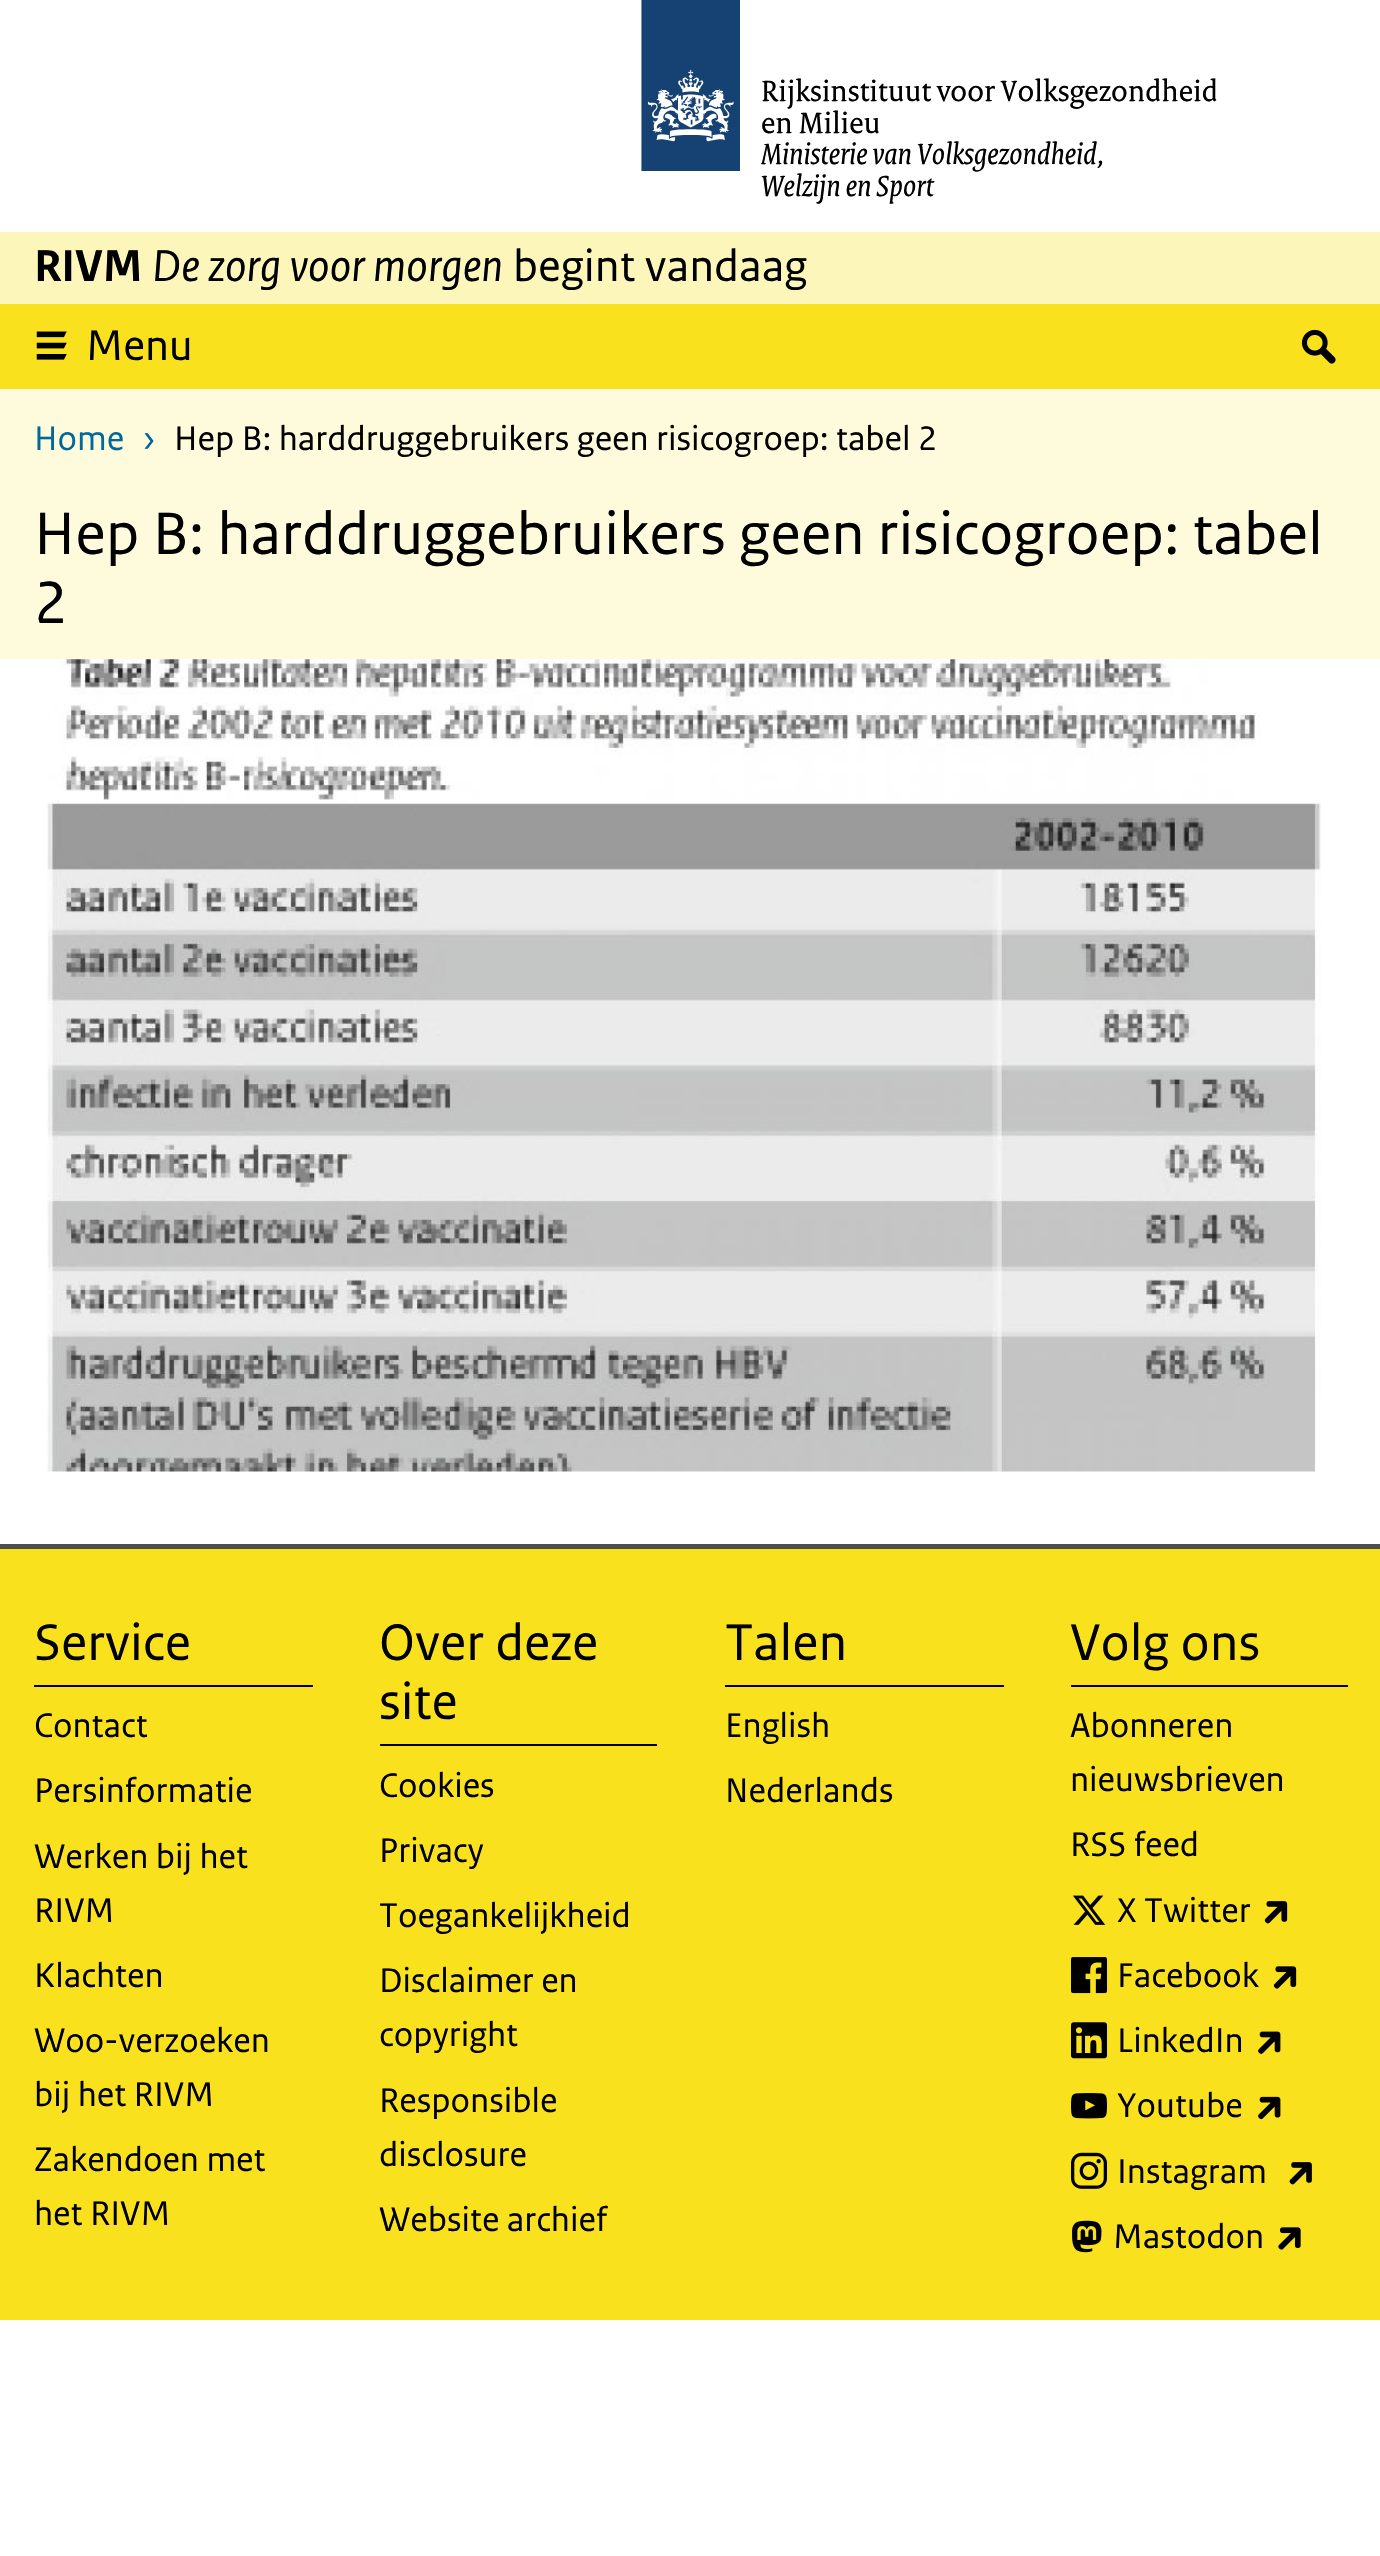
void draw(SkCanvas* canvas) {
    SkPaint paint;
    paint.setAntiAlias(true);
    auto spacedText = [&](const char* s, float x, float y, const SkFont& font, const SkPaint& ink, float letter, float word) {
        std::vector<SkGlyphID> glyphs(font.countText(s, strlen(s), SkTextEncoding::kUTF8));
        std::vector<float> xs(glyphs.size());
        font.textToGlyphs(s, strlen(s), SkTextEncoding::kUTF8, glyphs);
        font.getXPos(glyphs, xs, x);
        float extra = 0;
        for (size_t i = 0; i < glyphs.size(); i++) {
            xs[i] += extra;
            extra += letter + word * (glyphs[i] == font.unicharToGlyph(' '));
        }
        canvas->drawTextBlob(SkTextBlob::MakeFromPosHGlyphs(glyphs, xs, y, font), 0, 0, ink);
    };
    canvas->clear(0xFFFFFFFF);
    canvas->drawImageRect(SkImages::DeferredFromEncodedData(SkData::MakeFromFileName("img1.png")), SkRect::MakeXYWH(641, 0, 99, 171), SkSamplingOptions());
    SkFont font1(fontMgr->matchFamilyStyle("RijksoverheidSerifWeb", SkFontStyle::Normal()), 31.5f);
    font1.setSubpixel(true);
    paint.setColor(0xFF000000);
    spacedText("Rijksinstituut voor Volksgezondheid", 761, 101, font1, paint, 0.05f, 0);
    spacedText("en Milieu", 761, 133, font1, paint, 0.05f, 0);
    SkFont font2(fontMgr->matchFamilyStyle("RijksoverheidSerifWeb", SkFontStyle::Italic()), 31.5f);
    font2.setSubpixel(true);
    spacedText("Ministerie van Volksgezondheid,", 761, 164, font2, paint, 0.05f, 0);
    spacedText("Welzijn en Sport", 761, 196, font2, paint, 0.05f, 0);
    paint.setColor(0xFFFDF6BB);
    canvas->drawRect(SkRect::MakeXYWH(0, 232, 1380, 72), paint);
    SkFont font3(fontMgr->matchFamilyStyle("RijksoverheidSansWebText", SkFontStyle::Bold()), 46.75f);
    font3.setSubpixel(true);
    paint.setColor(0xFF000000);
    canvas->drawString("RIVM", 34, 281, font3, paint);
    SkFont font4(fontMgr->matchFamilyStyle("RijksoverheidSansWebText", SkFontStyle::Italic()), 46.75f);
    font4.setSubpixel(true);
    canvas->drawString("De zorg voor morgen", 152, 281, font4, paint);
    SkFont font5(fontMgr->matchFamilyStyle("RijksoverheidSansWebText", SkFontStyle::Normal()), 46.75f);
    font5.setSubpixel(true);
    canvas->drawString("begint vandaag", 513, 281, font5, paint);
    paint.setColor(0xFFF9E11E);
    canvas->drawRect(SkRect::MakeXYWH(0, 304, 1380, 85), paint);
    canvas->drawImageRect(SkImages::DeferredFromEncodedData(SkData::MakeFromFileName("img2.png")), SkRect::MakeXYWH(36, 331, 31, 29), SkSamplingOptions());
    SkFont font6(fontMgr->matchFamilyStyle("RijksoverheidSansWebText", SkFontStyle::Normal()), 45);
    font6.setSubpixel(true);
    paint.setColor(0xFF000000);
    canvas->drawString("Menu", 86, 360, font6, paint);
    canvas->drawImageRect(SkImages::DeferredFromEncodedData(SkData::MakeFromFileName("img3.png")), SkRect::MakeXYWH(1301, 329, 35, 35), SkSamplingOptions());
    paint.setColor(0xFFFEFBDD);
    canvas->drawRect(SkRect::MakeXYWH(0, 389, 1380, 270), paint);
    SkFont font7(fontMgr->matchFamilyStyle("RijksoverheidSansWebText", SkFontStyle::Normal()), 36);
    font7.setSubpixel(true);
    paint.setColor(0xFF01689B);
    canvas->drawString("Home", 34, 450, font7, paint);
    canvas->drawString("›", 142, 450, font7, paint);
    paint.setColor(0xFF000000);
    canvas->drawString("Hep B: harddruggebruikers geen risicogroep: tabel 2", 174, 450, font7, paint);
    SkFont font8(fontMgr->matchFamilyStyle("RijksoverheidSansWebText", SkFontStyle::Normal()), 63);
    font8.setSubpixel(true);
    canvas->drawString("Hep B: harddruggebruikers geen risicogroep: tabel", 34, 554, font8, paint);
    canvas->drawString("2", 34, 623, font8, paint);
    canvas->drawImageRect(SkImages::DeferredFromEncodedData(SkData::MakeFromFileName("img4.png")), SkRect::MakeXYWH(47, 659, 1274, 813), SkSamplingOptions());
    paint.setColor(0xFFF9E11E);
    canvas->drawRect(SkRect::MakeXYWH(0, 1549, 1380, 771), paint);
    paint.setColor(0xFF4E4E4E);
    canvas->drawRect(SkRect::MakeXYWH(0, 1544, 1380, 5), paint);
    paint.setColor(0xFF000000);
    canvas->drawRect(SkRect::MakeXYWH(34, 1685, 279, 2), paint);
    SkFont font9(fontMgr->matchFamilyStyle("RijksoverheidSansWebText", SkFontStyle::Normal()), 54);
    font9.setSubpixel(true);
    canvas->drawString("Service", 34, 1660, font9, paint);
    canvas->drawString("Contact", 34, 1737, font7, paint);
    canvas->drawString("Persinformatie", 34, 1802, font7, paint);
    canvas->drawString("Werken bij het", 34, 1868, font7, paint);
    canvas->drawString("RIVM", 34, 1922, font7, paint);
    canvas->drawString("Klachten", 34, 1987, font7, paint);
    canvas->drawString("Woo-verzoeken", 34, 2052, font7, paint);
    canvas->drawString("bij het RIVM", 34, 2106, font7, paint);
    canvas->drawString("Zakendoen met", 34, 2171, font7, paint);
    canvas->drawString("het RIVM", 34, 2225, font7, paint);
    canvas->drawRect(SkRect::MakeXYWH(380, 1744, 277, 2), paint);
    canvas->drawString("Over deze", 379, 1660, font9, paint);
    canvas->drawString("site", 379, 1719, font9, paint);
    canvas->drawString("Cookies", 379, 1797, font7, paint);
    canvas->drawString("Privacy", 379, 1862, font7, paint);
    canvas->drawString("Toegankelijkheid", 379, 1927, font7, paint);
    canvas->drawString("Disclaimer en", 379, 1992, font7, paint);
    canvas->drawString("copyright", 379, 2046, font7, paint);
    canvas->drawString("Responsible", 379, 2112, font7, paint);
    canvas->drawString("disclosure", 379, 2166, font7, paint);
    canvas->drawString("Website archief", 379, 2231, font7, paint);
    canvas->drawRect(SkRect::MakeXYWH(725, 1685, 279, 2), paint);
    canvas->drawString("Talen", 725, 1660, font9, paint);
    canvas->drawString("English", 725, 1737, font7, paint);
    canvas->drawString("Nederlands", 725, 1802, font7, paint);
    canvas->drawRect(SkRect::MakeXYWH(1071, 1685, 277, 2), paint);
    canvas->drawString("Volg ons", 1070, 1660, font9, paint);
    canvas->drawString("Abonneren", 1070, 1737, font7, paint);
    canvas->drawString("nieuwsbrieven", 1070, 1791, font7, paint);
    canvas->drawString("RSS feed", 1070, 1856, font7, paint);
    canvas->drawImageRect(SkImages::DeferredFromEncodedData(SkData::MakeFromFileName("img5.png")), SkRect::MakeXYWH(1073, 1895, 33, 30), SkSamplingOptions());
    canvas->drawString("X Twitter", 1117, 1922, font7, paint);
    canvas->drawImageRect(SkImages::DeferredFromEncodedData(SkData::MakeFromFileName("img6.png")), SkRect::MakeXYWH(1264, 1901, 24, 23), SkSamplingOptions());
    canvas->drawImageRect(SkImages::DeferredFromEncodedData(SkData::MakeFromFileName("img7.png")), SkRect::MakeXYWH(1071, 1957, 36, 37), SkSamplingOptions());
    canvas->drawString("Facebook", 1117, 1987, font7, paint);
    canvas->drawImageRect(SkImages::DeferredFromEncodedData(SkData::MakeFromFileName("img8.png")), SkRect::MakeXYWH(1273, 1966, 24, 23), SkSamplingOptions());
    canvas->drawImageRect(SkImages::DeferredFromEncodedData(SkData::MakeFromFileName("img9.png")), SkRect::MakeXYWH(1071, 2022, 36, 37), SkSamplingOptions());
    canvas->drawString("LinkedIn", 1117, 2052, font7, paint);
    canvas->drawImageRect(SkImages::DeferredFromEncodedData(SkData::MakeFromFileName("img10.png")), SkRect::MakeXYWH(1258, 2031, 23, 23), SkSamplingOptions());
    canvas->drawImageRect(SkImages::DeferredFromEncodedData(SkData::MakeFromFileName("img11.png")), SkRect::MakeXYWH(1071, 2093, 36, 26), SkSamplingOptions());
    canvas->drawString("Youtube", 1117, 2117, font7, paint);
    canvas->drawImageRect(SkImages::DeferredFromEncodedData(SkData::MakeFromFileName("img12.png")), SkRect::MakeXYWH(1258, 2096, 23, 24), SkSamplingOptions());
    canvas->drawImageRect(SkImages::DeferredFromEncodedData(SkData::MakeFromFileName("img13.png")), SkRect::MakeXYWH(1071, 2152, 36, 37), SkSamplingOptions());
    canvas->drawString("Instagram", 1117, 2183, font7, paint);
    canvas->drawImageRect(SkImages::DeferredFromEncodedData(SkData::MakeFromFileName("img14.png")), SkRect::MakeXYWH(1289, 2162, 23, 23), SkSamplingOptions());
    canvas->drawImageRect(SkImages::DeferredFromEncodedData(SkData::MakeFromFileName("img15.png")), SkRect::MakeXYWH(1072, 2220, 30, 33), SkSamplingOptions());
    canvas->drawString("Mastodon", 1113, 2248, font7, paint);
    canvas->drawImageRect(SkImages::DeferredFromEncodedData(SkData::MakeFromFileName("img16.png")), SkRect::MakeXYWH(1278, 2227, 23, 23), SkSamplingOptions());
}
